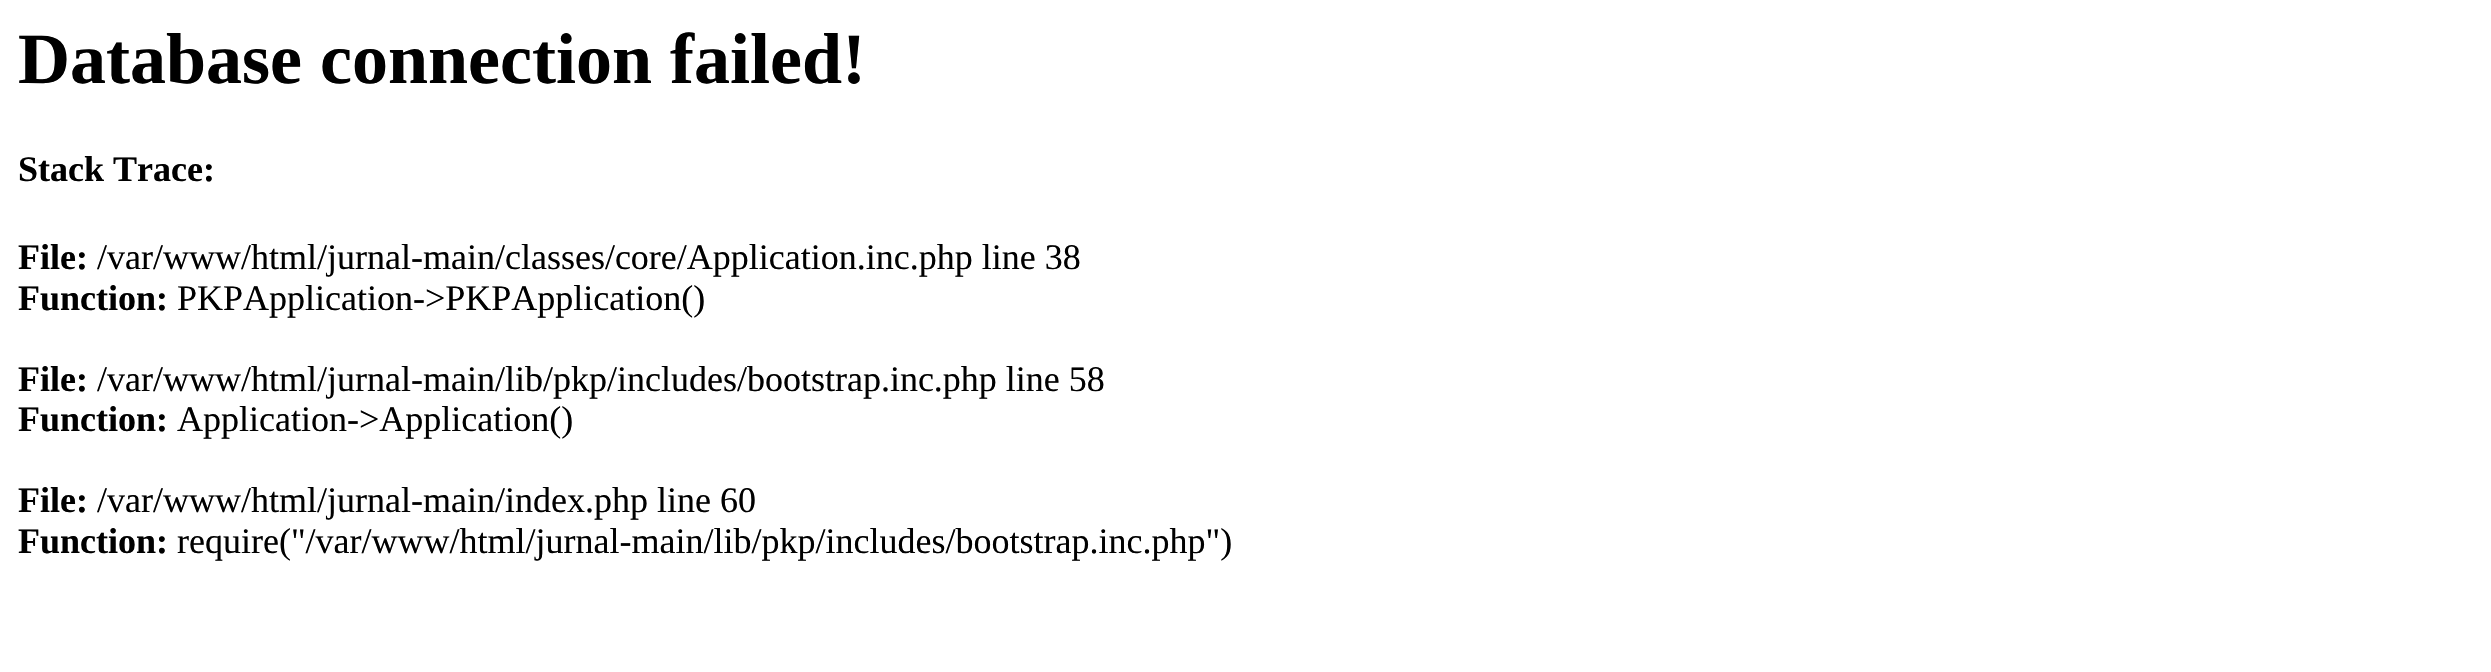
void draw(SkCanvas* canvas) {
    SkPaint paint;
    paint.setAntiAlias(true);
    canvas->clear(0xFFFFFFFF);
    SkFont font1(fontMgr->matchFamilyStyle("Liberation Serif", SkFontStyle::Bold()), 72);
    font1.setSubpixel(true);
    paint.setColor(0xFF000000);
    canvas->drawString("Database connection failed!", 18, 83, font1, paint);
    SkFont font2(fontMgr->matchFamilyStyle("Liberation Serif", SkFontStyle::Bold()), 36);
    font2.setSubpixel(true);
    canvas->drawString("Stack Trace:", 18, 181, font2, paint);
    canvas->drawString("File:", 18, 269, font2, paint);
    SkFont font3(fontMgr->matchFamilyStyle("Liberation Serif", SkFontStyle::Normal()), 36);
    font3.setSubpixel(true);
    canvas->drawString("/var/www/html/jurnal-main/classes/core/Application.inc.php line 38", 97, 269, font3, paint);
    canvas->drawString("Function:", 18, 310, font2, paint);
    canvas->drawString("PKPApplication->PKPApplication()", 177, 310, font3, paint);
    canvas->drawString("File:", 18, 391, font2, paint);
    canvas->drawString("/var/www/html/jurnal-main/lib/pkp/includes/bootstrap.inc.php line 58", 97, 391, font3, paint);
    canvas->drawString("Function:", 18, 431, font2, paint);
    canvas->drawString("Application->Application()", 177, 431, font3, paint);
    canvas->drawString("File:", 18, 512, font2, paint);
    canvas->drawString("/var/www/html/jurnal-main/index.php line 60", 97, 512, font3, paint);
    canvas->drawString("Function:", 18, 553, font2, paint);
    canvas->drawString("require(\"/var/www/html/jurnal-main/lib/pkp/includes/bootstrap.inc.php\")", 177, 553, font3, paint);
}
